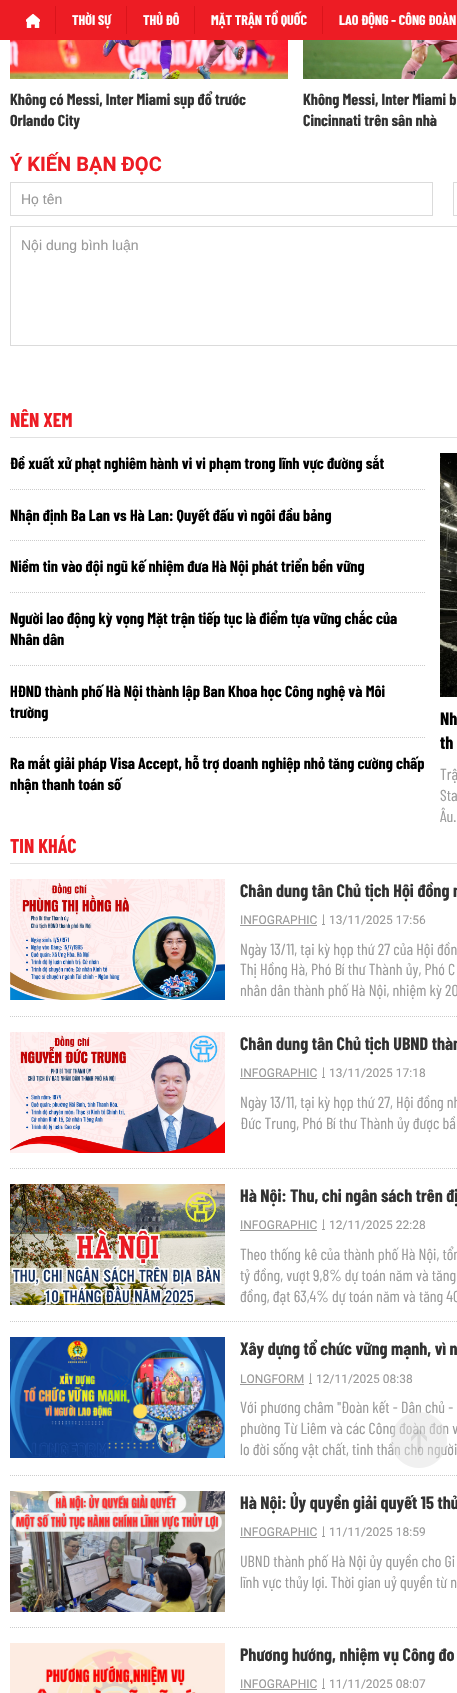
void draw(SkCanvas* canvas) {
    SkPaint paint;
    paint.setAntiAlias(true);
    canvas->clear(0xFFFFFFFF);
    paint.setColor(0xFFED1C24);
    canvas->drawRect(SkRect::MakeXYWH(0, 0, 457, 40), paint);
    canvas->drawImageRect(SkImages::DeferredFromEncodedData(SkData::MakeFromFileName("img1.png")), SkRect::MakeXYWH(26, 14, 14, 14), SkSamplingOptions());
    paint.setColor(0xFFDA141B);
    canvas->drawRect(SkRect::MakeXYWH(55, 6, 1, 28), paint);
    SkFont font1(fontMgr->matchFamilyStyle("Barlow Condensed", SkFontStyle::Bold()), 14);
    font1.setSubpixel(true);
    paint.setColor(0xFFFFFFFF);
    canvas->drawString("THỜI SỰ", 72, 25, font1, paint);
    paint.setColor(0xFFDA141B);
    canvas->drawRect(SkRect::MakeXYWH(126, 6, 1, 28), paint);
    paint.setColor(0xFFFFFFFF);
    canvas->drawString("THỦ ĐÔ", 143, 25, font1, paint);
    paint.setColor(0xFFDA141B);
    canvas->drawRect(SkRect::MakeXYWH(194, 6, 1, 28), paint);
    paint.setColor(0xFFFFFFFF);
    canvas->drawString("MẶT TRẬN TỔ QUỐC", 211, 25, font1, paint);
    paint.setColor(0xFFDA141B);
    canvas->drawRect(SkRect::MakeXYWH(322, 6, 1, 28), paint);
    paint.setColor(0xFFFFFFFF);
    canvas->drawString("LAO ĐỘNG - CÔNG ĐOÀN", 339, 25, font1, paint);
    canvas->drawImageRect(SkImages::DeferredFromEncodedData(SkData::MakeFromFileName("img2.png")), SkRect::MakeXYWH(10, 40, 278, 39), SkSamplingOptions());
    SkFont font2(fontMgr->matchFamilyStyle("Barlow Condensed", SkFontStyle::Bold()), 16);
    font2.setSubpixel(true);
    paint.setColor(0xFF333333);
    canvas->drawString("Không có Messi, Inter Miami sụp đổ trước", 10, 105, font2, paint);
    canvas->drawString("Orlando City", 10, 126, font2, paint);
    canvas->drawImageRect(SkImages::DeferredFromEncodedData(SkData::MakeFromFileName("img3.png")), SkRect::MakeXYWH(303, 40, 154, 39), SkSamplingOptions());
    canvas->drawString("Không Messi, Inter Miami b", 303, 105, font2, paint);
    canvas->drawString("Cincinnati trên sân nhà", 303, 126, font2, paint);
    SkFont font3(fontMgr->matchFamilyStyle("Roboto", SkFontStyle::Bold()), 20);
    font3.setSubpixel(true);
    paint.setColor(0xFFED1C24);
    canvas->drawString("Ý KIẾN BẠN ĐỌC", 10, 171, font3, paint);
    paint.setStyle(SkPaint::kStroke_Style);
    paint.setStrokeWidth(1);
    paint.setColor(0xFFDBDBDB);
    canvas->drawRect(SkRect::MakeXYWH(10.5f, 182.5f, 422, 33), paint);
    SkFont font4(fontMgr->matchFamilyStyle("Liberation Sans", SkFontStyle::Normal()), 14);
    font4.setSubpixel(true);
    paint.setStyle(SkPaint::kFill_Style);
    paint.setColor(0xFF999999);
    canvas->drawString("Họ tên", 21, 204, font4, paint);
    paint.setStyle(SkPaint::kStroke_Style);
    paint.setColor(0xFFDBDBDB);
    canvas->drawRect(SkRect::MakeXYWH(453.5f, 182.5f, 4, 33), paint);
    canvas->drawRect(SkRect::MakeXYWH(10.5f, 226.5f, 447, 119), paint);
    paint.setStyle(SkPaint::kFill_Style);
    paint.setColor(0xFF999999);
    canvas->drawString("Nội dung bình luận", 21, 250, font4, paint);
    paint.setColor(0xFFE1E1E1);
    canvas->drawRect(SkRect::MakeXYWH(10, 437, 447, 1), paint);
    SkFont font5(fontMgr->matchFamilyStyle("Barlow Condensed", SkFontStyle::Bold()), 20);
    font5.setSubpixel(true);
    paint.setColor(0xFFED1C24);
    canvas->drawString("NÊN XEM", 10, 427, font5, paint);
    paint.setColor(0xFF000000);
    canvas->drawString("Đề xuất xử phạt nghiêm hành vi vi phạm trong lĩnh vực đường sắt", 10, 469, font2, paint);
    paint.setStyle(SkPaint::kStroke_Style);
    paint.setColor(0xFFCCCCCC);
    paint.setPathEffect(SkDashPathEffect::Make({{1, 1}}, 0));
    canvas->drawPath(SkPathBuilder().moveTo(10, 489.5f).lineTo(425, 489.5f).detach(), paint);
    paint.setPathEffect(nullptr);
    paint.setStyle(SkPaint::kFill_Style);
    paint.setColor(0xFF000000);
    canvas->drawString("Nhận định Ba Lan vs Hà Lan: Quyết đấu vì ngôi đầu bảng", 10, 521, font2, paint);
    paint.setStyle(SkPaint::kStroke_Style);
    paint.setColor(0xFFCCCCCC);
    paint.setPathEffect(SkDashPathEffect::Make({{1, 1}}, 0));
    canvas->drawPath(SkPathBuilder().moveTo(10, 540.5f).lineTo(425, 540.5f).detach(), paint);
    paint.setPathEffect(nullptr);
    paint.setStyle(SkPaint::kFill_Style);
    paint.setColor(0xFF000000);
    canvas->drawString("Niềm tin vào đội ngũ kế nhiệm đưa Hà Nội phát triển bền vững", 10, 572, font2, paint);
    paint.setStyle(SkPaint::kStroke_Style);
    paint.setColor(0xFFCCCCCC);
    paint.setPathEffect(SkDashPathEffect::Make({{1, 1}}, 0));
    canvas->drawPath(SkPathBuilder().moveTo(10, 592.5f).lineTo(425, 592.5f).detach(), paint);
    paint.setPathEffect(nullptr);
    paint.setStyle(SkPaint::kFill_Style);
    paint.setColor(0xFF000000);
    canvas->drawString("Người lao động kỳ vọng Mặt trận tiếp tục là điểm tựa vững chắc của", 10, 624, font2, paint);
    canvas->drawString("Nhân dân", 10, 645, font2, paint);
    paint.setStyle(SkPaint::kStroke_Style);
    paint.setColor(0xFFCCCCCC);
    paint.setPathEffect(SkDashPathEffect::Make({{1, 1}}, 0));
    canvas->drawPath(SkPathBuilder().moveTo(10, 665.5f).lineTo(425, 665.5f).detach(), paint);
    paint.setPathEffect(nullptr);
    paint.setStyle(SkPaint::kFill_Style);
    paint.setColor(0xFF000000);
    canvas->drawString("HĐND thành phố Hà Nội thành lập Ban Khoa học Công nghệ và Môi", 10, 697, font2, paint);
    canvas->drawString("trường", 10, 718, font2, paint);
    paint.setStyle(SkPaint::kStroke_Style);
    paint.setColor(0xFFCCCCCC);
    paint.setPathEffect(SkDashPathEffect::Make({{1, 1}}, 0));
    canvas->drawPath(SkPathBuilder().moveTo(10, 737.5f).lineTo(425, 737.5f).detach(), paint);
    paint.setPathEffect(nullptr);
    paint.setStyle(SkPaint::kFill_Style);
    paint.setColor(0xFF000000);
    canvas->drawString("Ra mắt giải pháp Visa Accept, hỗ trợ doanh nghiệp nhỏ tăng cường chấp", 10, 769, font2, paint);
    canvas->drawString("nhận thanh toán số", 10, 790, font2, paint);
    canvas->drawImageRect(SkImages::DeferredFromEncodedData(SkData::MakeFromFileName("img4.png")), SkRect::MakeXYWH(440, 453, 17, 244), SkSamplingOptions());
    SkFont font6(fontMgr->matchFamilyStyle("Barlow Condensed", SkFontStyle::Bold()), 18);
    font6.setSubpixel(true);
    canvas->drawString("Nh", 440, 725, font6, paint);
    canvas->drawString("th", 440, 749, font6, paint);
    SkFont font7(fontMgr->matchFamilyStyle("Barlow Condensed", SkFontStyle::Normal()), 16);
    font7.setSubpixel(true);
    paint.setColor(0xFF999999);
    canvas->drawString("Trậ", 440, 780, font7, paint);
    canvas->drawString("Sta", 440, 801, font7, paint);
    canvas->drawString("Âu.", 440, 822, font7, paint);
    paint.setColor(0xFFE1E1E1);
    canvas->drawRect(SkRect::MakeXYWH(10, 863, 447, 1), paint);
    paint.setColor(0xFFED1C24);
    canvas->drawString("TIN KHÁC", 10, 853, font5, paint);
    canvas->drawImageRect(SkImages::DeferredFromEncodedData(SkData::MakeFromFileName("img5.png")), SkRect::MakeXYWH(10, 879, 215, 121), SkSamplingOptions());
    paint.setColor(0xFF333333);
    canvas->drawString("Chân dung tân Chủ tịch Hội đồng n", 240, 897, font6, paint);
    SkFont font8(fontMgr->matchFamilyStyle("Roboto", SkFontStyle::Normal()), 12);
    font8.setSubpixel(true);
    paint.setColor(0xFF999999);
    canvas->drawString("INFOGRAPHIC", 240, 924, font8, paint);
    canvas->drawRect(SkRect::MakeXYWH(240, 925, 77, 1), paint);
    canvas->drawRect(SkRect::MakeXYWH(322, 924, 3, 1), paint);
    canvas->drawString("|", 322, 923, font8, paint);
    canvas->drawString("13/11/2025 17:56", 329, 924, font8, paint);
    canvas->drawString("Ngày 13/11, tại kỳ họp thứ 27 của Hội đồn", 240, 955, font7, paint);
    canvas->drawString("Thị Hồng Hà, Phó Bí thư Thành ủy, Phó C", 240, 975, font7, paint);
    canvas->drawString("nhân dân thành phố Hà Nội, nhiệm kỳ 20", 240, 996, font7, paint);
    paint.setStyle(SkPaint::kStroke_Style);
    paint.setColor(0xFFCCCCCC);
    paint.setPathEffect(SkDashPathEffect::Make({{1, 1}}, 0));
    canvas->drawPath(SkPathBuilder().moveTo(10, 1016.5f).lineTo(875, 1016.5f).detach(), paint);
    paint.setPathEffect(nullptr);
    canvas->drawImageRect(SkImages::DeferredFromEncodedData(SkData::MakeFromFileName("img6.png")), SkRect::MakeXYWH(10, 1032, 215, 121), SkSamplingOptions());
    paint.setStyle(SkPaint::kFill_Style);
    paint.setColor(0xFF333333);
    canvas->drawString("Chân dung tân Chủ tịch UBND thàn", 240, 1050, font6, paint);
    paint.setColor(0xFF999999);
    canvas->drawString("INFOGRAPHIC", 240, 1077, font8, paint);
    canvas->drawRect(SkRect::MakeXYWH(240, 1078, 77, 1), paint);
    canvas->drawRect(SkRect::MakeXYWH(322, 1077, 3, 1), paint);
    canvas->drawString("|", 322, 1076, font8, paint);
    canvas->drawString("13/11/2025 17:18", 329, 1077, font8, paint);
    canvas->drawString("Ngày 13/11, tại kỳ họp thứ 27, Hội đồng nh", 240, 1108, font7, paint);
    canvas->drawString("Đức Trung, Phó Bí thư Thành ủy được bầ", 240, 1129, font7, paint);
    paint.setStyle(SkPaint::kStroke_Style);
    paint.setColor(0xFFCCCCCC);
    paint.setPathEffect(SkDashPathEffect::Make({{1, 1}}, 0));
    canvas->drawPath(SkPathBuilder().moveTo(10, 1168.5f).lineTo(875, 1168.5f).detach(), paint);
    paint.setPathEffect(nullptr);
    canvas->drawImageRect(SkImages::DeferredFromEncodedData(SkData::MakeFromFileName("img7.png")), SkRect::MakeXYWH(10, 1184, 215, 121), SkSamplingOptions());
    paint.setStyle(SkPaint::kFill_Style);
    paint.setColor(0xFF333333);
    canvas->drawString("Hà Nội: Thu, chi ngân sách trên đị", 240, 1202, font6, paint);
    paint.setColor(0xFF999999);
    canvas->drawString("INFOGRAPHIC", 240, 1229, font8, paint);
    canvas->drawRect(SkRect::MakeXYWH(240, 1230, 77, 1), paint);
    canvas->drawRect(SkRect::MakeXYWH(322, 1229, 3, 1), paint);
    canvas->drawString("|", 322, 1228, font8, paint);
    canvas->drawString("12/11/2025 22:28", 329, 1229, font8, paint);
    canvas->drawString("Theo thống kê của thành phố Hà Nội, tổn", 240, 1260, font7, paint);
    canvas->drawString("tỷ đồng, vượt 9,8% dự toán năm và tăng", 240, 1281, font7, paint);
    canvas->drawString("đồng, đạt 63,4% dự toán năm và tăng 40", 240, 1302, font7, paint);
    paint.setStyle(SkPaint::kStroke_Style);
    paint.setColor(0xFFCCCCCC);
    paint.setPathEffect(SkDashPathEffect::Make({{1, 1}}, 0));
    canvas->drawPath(SkPathBuilder().moveTo(10, 1321.5f).lineTo(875, 1321.5f).detach(), paint);
    paint.setPathEffect(nullptr);
    canvas->drawImageRect(SkImages::DeferredFromEncodedData(SkData::MakeFromFileName("img8.png")), SkRect::MakeXYWH(10, 1337, 215, 121), SkSamplingOptions());
    paint.setStyle(SkPaint::kFill_Style);
    paint.setColor(0xFF333333);
    canvas->drawString("Xây dựng tổ chức vững mạnh, vì n", 240, 1355, font6, paint);
    paint.setColor(0xFF999999);
    canvas->drawString("LONGFORM", 240, 1383, font8, paint);
    canvas->drawRect(SkRect::MakeXYWH(240, 1384, 64, 1), paint);
    canvas->drawRect(SkRect::MakeXYWH(309, 1383, 3, 1), paint);
    canvas->drawString("|", 309, 1382, font8, paint);
    canvas->drawString("12/11/2025 08:38", 316, 1383, font8, paint);
    canvas->drawString("Với phương châm \"Đoàn kết - Dân chủ -", 240, 1413, font7, paint);
    canvas->drawString("phường Từ Liêm và các Công đoàn đơn v", 240, 1434, font7, paint);
    canvas->drawString("lo đời sống vật chất, tinh thần cho người", 240, 1455, font7, paint);
    paint.setStyle(SkPaint::kStroke_Style);
    paint.setColor(0xFFCCCCCC);
    paint.setPathEffect(SkDashPathEffect::Make({{1, 1}}, 0));
    canvas->drawPath(SkPathBuilder().moveTo(10, 1475.5f).lineTo(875, 1475.5f).detach(), paint);
    paint.setPathEffect(nullptr);
    canvas->drawImageRect(SkImages::DeferredFromEncodedData(SkData::MakeFromFileName("img9.png")), SkRect::MakeXYWH(10, 1491, 215, 121), SkSamplingOptions());
    paint.setStyle(SkPaint::kFill_Style);
    paint.setColor(0xFF333333);
    canvas->drawString("Hà Nội: Ủy quyền giải quyết 15 thủ", 240, 1509, font6, paint);
    paint.setColor(0xFF999999);
    canvas->drawString("INFOGRAPHIC", 240, 1536, font8, paint);
    canvas->drawRect(SkRect::MakeXYWH(240, 1537, 77, 1), paint);
    canvas->drawRect(SkRect::MakeXYWH(322, 1536, 3, 1), paint);
    canvas->drawString("|", 322, 1535, font8, paint);
    canvas->drawString("11/11/2025 18:59", 329, 1536, font8, paint);
    canvas->drawString("UBND thành phố Hà Nội ủy quyền cho Gi", 240, 1567, font7, paint);
    canvas->drawString("lĩnh vực thủy lợi. Thời gian uỷ quyền từ n", 240, 1588, font7, paint);
    paint.setStyle(SkPaint::kStroke_Style);
    paint.setColor(0xFFCCCCCC);
    paint.setPathEffect(SkDashPathEffect::Make({{1, 1}}, 0));
    canvas->drawPath(SkPathBuilder().moveTo(10, 1627.5f).lineTo(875, 1627.5f).detach(), paint);
    paint.setPathEffect(nullptr);
    canvas->drawImageRect(SkImages::DeferredFromEncodedData(SkData::MakeFromFileName("img10.png")), SkRect::MakeXYWH(10, 1643, 215, 50), SkSamplingOptions());
    paint.setStyle(SkPaint::kFill_Style);
    paint.setColor(0xFF333333);
    canvas->drawString("Phương hướng, nhiệm vụ Công đo", 240, 1661, font6, paint);
    paint.setColor(0xFF999999);
    canvas->drawString("INFOGRAPHIC", 240, 1688, font8, paint);
    canvas->drawRect(SkRect::MakeXYWH(240, 1689, 77, 1), paint);
    canvas->drawRect(SkRect::MakeXYWH(322, 1688, 3, 1), paint);
    canvas->drawString("|", 322, 1687, font8, paint);
    canvas->drawString("11/11/2025 08:07", 329, 1688, font8, paint);
    canvas->drawImageRect(SkImages::DeferredFromEncodedData(SkData::MakeFromFileName("img11.png")), SkRect::MakeXYWH(391, 1412, 56, 56), SkSamplingOptions());
}
